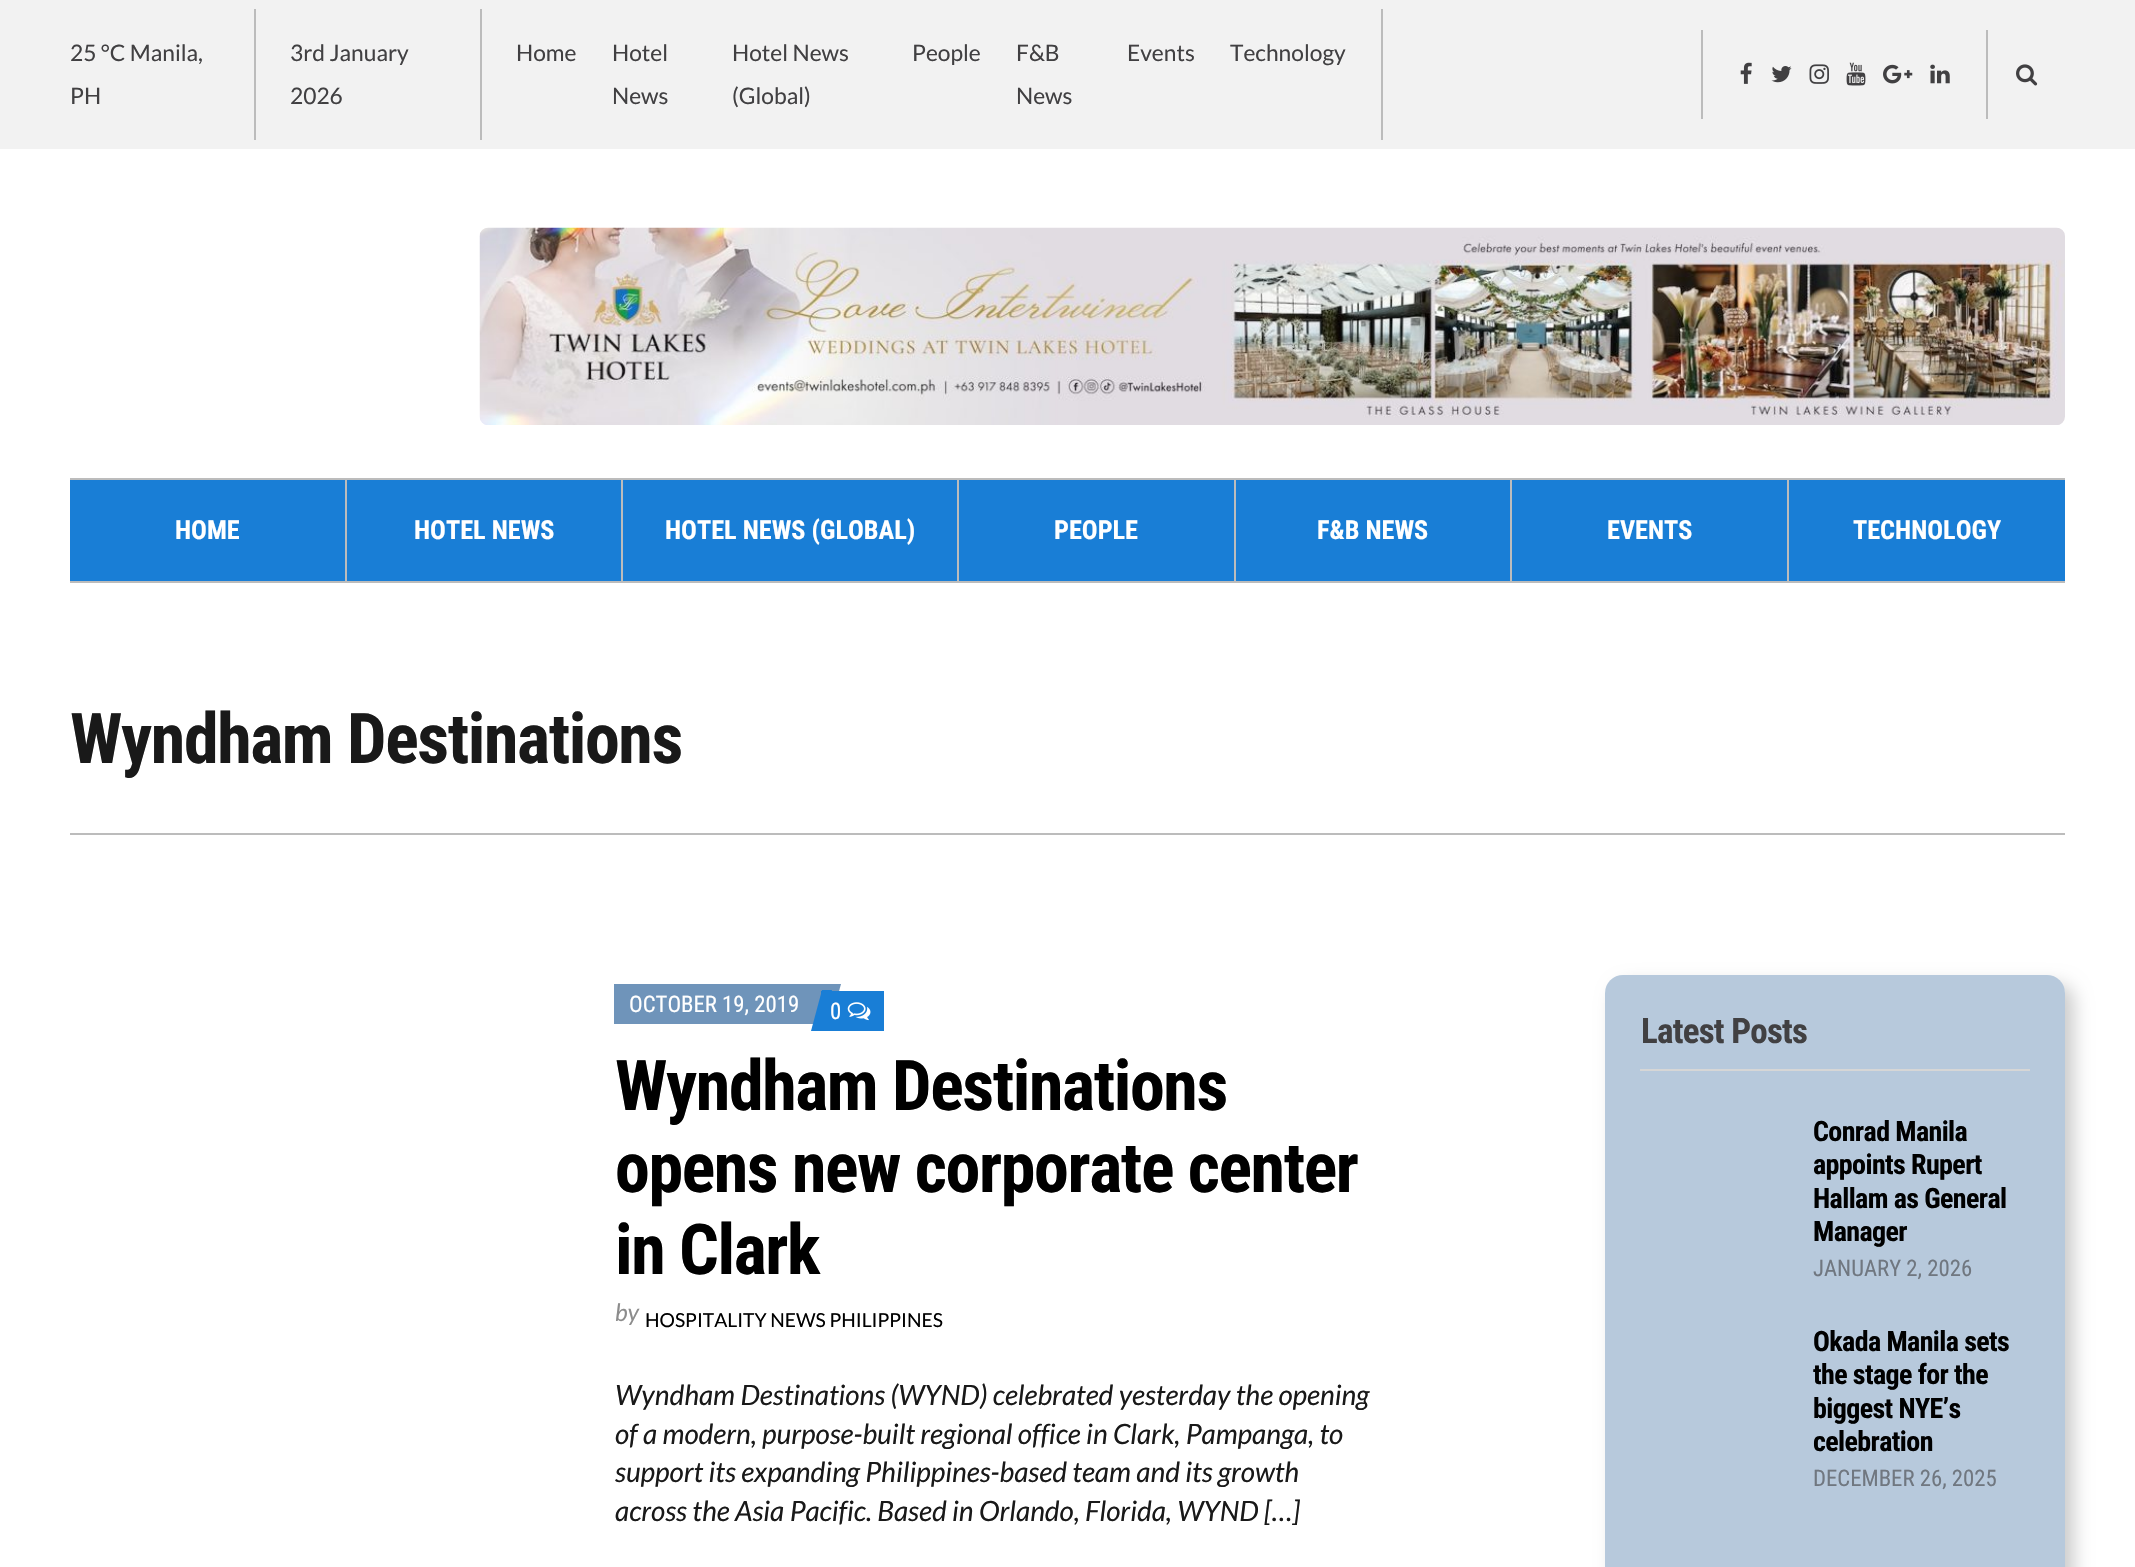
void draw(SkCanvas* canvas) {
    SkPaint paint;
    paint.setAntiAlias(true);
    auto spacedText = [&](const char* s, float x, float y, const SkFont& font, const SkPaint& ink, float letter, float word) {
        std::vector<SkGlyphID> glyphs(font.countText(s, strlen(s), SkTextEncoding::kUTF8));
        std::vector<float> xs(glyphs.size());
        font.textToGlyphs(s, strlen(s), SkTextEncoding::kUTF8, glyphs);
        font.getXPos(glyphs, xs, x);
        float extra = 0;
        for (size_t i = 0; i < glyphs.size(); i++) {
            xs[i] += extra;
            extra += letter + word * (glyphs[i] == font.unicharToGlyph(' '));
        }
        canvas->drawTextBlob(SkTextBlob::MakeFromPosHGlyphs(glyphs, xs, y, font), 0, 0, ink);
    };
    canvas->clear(0xFFFFFFFF);
    paint.setColor(0xFFF2F2F2);
    canvas->drawRect(SkRect::MakeXYWH(0, 0, 2135, 149), paint);
    paint.setColor(0xFFBCBCBC);
    canvas->drawRect(SkRect::MakeXYWH(254, 9, 2, 131), paint);
    SkFont font1(fontMgr->matchFamilyStyle("Lato", SkFontStyle::Normal()), 22.75f);
    font1.setSubpixel(true);
    paint.setColor(0xFF414042);
    canvas->drawString("25 °C Manila,", 70, 61, font1, paint);
    canvas->drawString("PH", 70, 104, font1, paint);
    paint.setColor(0xFFBCBCBC);
    canvas->drawRect(SkRect::MakeXYWH(480, 9, 2, 131), paint);
    paint.setColor(0xFF414042);
    canvas->drawString("3rd January", 290, 61, font1, paint);
    canvas->drawString("2026", 290, 104, font1, paint);
    paint.setColor(0xFFBCBCBC);
    canvas->drawRect(SkRect::MakeXYWH(1381, 9, 2, 131), paint);
    paint.setColor(0xFF414042);
    canvas->drawString("Home", 516, 61, font1, paint);
    canvas->drawString("Hotel", 612, 61, font1, paint);
    canvas->drawString("News", 612, 104, font1, paint);
    canvas->drawString("Hotel News", 732, 61, font1, paint);
    canvas->drawString("(Global)", 732, 104, font1, paint);
    canvas->drawString("People", 912, 61, font1, paint);
    canvas->drawString("F&B", 1016, 61, font1, paint);
    canvas->drawString("News", 1016, 104, font1, paint);
    canvas->drawString("Events", 1127, 61, font1, paint);
    canvas->drawString("Technology", 1230, 61, font1, paint);
    paint.setColor(0xFFBCBCBC);
    canvas->drawRect(SkRect::MakeXYWH(1701, 30, 2, 89), paint);
    canvas->drawImageRect(SkImages::DeferredFromEncodedData(SkData::MakeFromFileName("img1.png")), SkRect::MakeXYWH(1740, 62, 12, 22), SkSamplingOptions());
    canvas->drawImageRect(SkImages::DeferredFromEncodedData(SkData::MakeFromFileName("img2.png")), SkRect::MakeXYWH(1771, 66, 21, 17), SkSamplingOptions());
    canvas->drawImageRect(SkImages::DeferredFromEncodedData(SkData::MakeFromFileName("img3.png")), SkRect::MakeXYWH(1809, 64, 20, 20), SkSamplingOptions());
    canvas->drawImageRect(SkImages::DeferredFromEncodedData(SkData::MakeFromFileName("img4.png")), SkRect::MakeXYWH(1846, 62, 20, 24), SkSamplingOptions());
    canvas->drawImageRect(SkImages::DeferredFromEncodedData(SkData::MakeFromFileName("img5.png")), SkRect::MakeXYWH(1883, 64, 30, 20), SkSamplingOptions());
    canvas->drawImageRect(SkImages::DeferredFromEncodedData(SkData::MakeFromFileName("img6.png")), SkRect::MakeXYWH(1930, 64, 20, 20), SkSamplingOptions());
    canvas->drawRect(SkRect::MakeXYWH(1986, 30, 2, 89), paint);
    canvas->drawImageRect(SkImages::DeferredFromEncodedData(SkData::MakeFromFileName("img7.png")), SkRect::MakeXYWH(2016, 64, 22, 22), SkSamplingOptions());
    canvas->drawImageRect(SkImages::DeferredFromEncodedData(SkData::MakeFromFileName("img8.png")), SkRect::MakeXYWH(479, 227, 1586, 198), SkSamplingOptions());
    paint.setColor(0xFF197ED6);
    canvas->drawRect(SkRect::MakeXYWH(70, 480, 1995, 101), paint);
    paint.setColor(0xFFBCBCBC);
    canvas->drawRect(SkRect::MakeXYWH(70, 478, 1995, 2), paint);
    canvas->drawRect(SkRect::MakeXYWH(70, 581, 1995, 2), paint);
    canvas->drawRect(SkRect::MakeXYWH(345, 480, 2, 101), paint);
    SkFont font2(fontMgr->matchFamilyStyle("Roboto Condensed", SkFontStyle::Bold()), 26.25f);
    font2.setSubpixel(true);
    paint.setColor(0xFFFFFFFF);
    canvas->drawString("HOME", 175, 539, font2, paint);
    paint.setColor(0xFFBCBCBC);
    canvas->drawRect(SkRect::MakeXYWH(621, 480, 2, 101), paint);
    paint.setColor(0xFFFFFFFF);
    canvas->drawString("HOTEL NEWS", 414, 539, font2, paint);
    paint.setColor(0xFFBCBCBC);
    canvas->drawRect(SkRect::MakeXYWH(957, 480, 2, 101), paint);
    paint.setColor(0xFFFFFFFF);
    canvas->drawString("HOTEL NEWS (GLOBAL)", 665, 539, font2, paint);
    paint.setColor(0xFFBCBCBC);
    canvas->drawRect(SkRect::MakeXYWH(1234, 480, 2, 101), paint);
    paint.setColor(0xFFFFFFFF);
    canvas->drawString("PEOPLE", 1054, 539, font2, paint);
    paint.setColor(0xFFBCBCBC);
    canvas->drawRect(SkRect::MakeXYWH(1510, 480, 2, 101), paint);
    paint.setColor(0xFFFFFFFF);
    canvas->drawString("F&B NEWS", 1317, 539, font2, paint);
    paint.setColor(0xFFBCBCBC);
    canvas->drawRect(SkRect::MakeXYWH(1787, 480, 2, 101), paint);
    paint.setColor(0xFFFFFFFF);
    canvas->drawString("EVENTS", 1607, 539, font2, paint);
    canvas->drawString("TECHNOLOGY", 1853, 539, font2, paint);
    paint.setColor(0xFFBCBCBC);
    canvas->drawRect(SkRect::MakeXYWH(70, 833, 1995, 2), paint);
    SkFont font3(fontMgr->matchFamilyStyle("Roboto Condensed", SkFontStyle::Bold()), 70);
    font3.setSubpixel(true);
    paint.setColor(0xFF191919);
    spacedText("Wyndham Destinations", 70, 763, font3, paint, -1.4f, 0);
    paint.setColor(0xFF6F94BA);
    canvas->drawRect(SkRect::MakeXYWH(614, 984, 217, 40), paint);
    SkFont font4(fontMgr->matchFamilyStyle("Roboto Condensed", SkFontStyle::Normal()), 22.75f);
    font4.setSubpixel(true);
    paint.setColor(0xFFFFFFFF);
    canvas->drawString("OCTOBER 19, 2019", 629, 1012, font4, paint);
    paint.setColor(0xFF6F94BA);
    canvas->drawPath(SkPathBuilder().moveTo(831, 984).lineTo(841, 984).lineTo(830, 1024).lineTo(820, 1024).close().detach(), paint);
    paint.setColor(0xFF197ED6);
    canvas->drawRect(SkRect::MakeXYWH(821, 991, 63, 40), paint);
    paint.setColor(0xFFFFFFFF);
    canvas->drawString("0", 830, 1019, font4, paint);
    paint.setColor(0xFF197ED6);
    canvas->drawPath(SkPathBuilder().moveTo(822, 990).lineTo(832, 990).lineTo(822, 1031).lineTo(811, 1031).close().detach(), paint);
    canvas->drawImageRect(SkImages::DeferredFromEncodedData(SkData::MakeFromFileName("img9.png")), SkRect::MakeXYWH(847, 1002, 24, 19), SkSamplingOptions());
    paint.setColor(0xFF000000);
    spacedText("Wyndham Destinations", 615, 1110, font3, paint, -1.4f, 0);
    spacedText("opens new corporate center", 615, 1192, font3, paint, -1.4f, 0);
    spacedText("in Clark", 615, 1274, font3, paint, -1.4f, 0);
    SkFont font5(fontMgr->matchFamilyStyle("Lato", SkFontStyle::Italic()), 24);
    font5.setSubpixel(true);
    paint.setColor(0xFF8C8C8C);
    canvas->drawString("by", 615, 1321, font5, paint);
    SkFont font6(fontMgr->matchFamilyStyle("Lato", SkFontStyle::Normal()), 19.25f);
    font6.setSubpixel(true);
    paint.setColor(0xFF000000);
    canvas->drawString("HOSPITALITY NEWS PHILIPPINES", 645, 1327, font6, paint);
    SkFont font7(fontMgr->matchFamilyStyle("Lato", SkFontStyle::Italic()), 28);
    font7.setSubpixel(true);
    paint.setColor(0xFF191919);
    canvas->drawString("Wyndham Destinations (WYND) celebrated yesterday the opening", 615, 1405, font7, paint);
    canvas->drawString("of a modern, purpose-built regional office in Clark, Pampanga, to", 615, 1444, font7, paint);
    canvas->drawString("support its expanding Philippines-based team and its growth", 615, 1482, font7, paint);
    canvas->drawString("across the Asia Pacific. Based in Orlando, Florida, WYND […]", 615, 1521, font7, paint);
    canvas->save();
    canvas->clipPath(SkPathBuilder(SkPathFillType::kEvenOdd).moveTo(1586, 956).lineTo(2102, 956).lineTo(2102, 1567).lineTo(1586, 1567).close().moveTo(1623, 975).lineTo(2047, 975).cubicTo(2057, 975, 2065, 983, 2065, 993).lineTo(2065, 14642).cubicTo(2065, 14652, 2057, 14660, 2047, 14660).lineTo(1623, 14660).cubicTo(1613, 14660, 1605, 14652, 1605, 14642).lineTo(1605, 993).cubicTo(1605, 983, 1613, 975, 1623, 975).close().detach(), true);
    paint.setColor(0xFFCCCCCC);
    paint.setMaskFilter(SkMaskFilter::MakeBlur(kNormal_SkBlurStyle, 9));
    canvas->drawRoundRect(SkRect::MakeXYWH(1614, 984, 460, 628), 18, 18, paint);
    paint.setMaskFilter(nullptr);
    canvas->restore();
    paint.setColor(0x806F94BA);
    canvas->drawRoundRect(SkRect::MakeXYWH(1605, 975, 460, 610), 18, 18, paint);
    paint.setColor(0xFFD6D6D6);
    canvas->drawRect(SkRect::MakeXYWH(1640, 1069, 390, 2), paint);
    SkFont font8(fontMgr->matchFamilyStyle("Roboto Condensed", SkFontStyle::Bold()), 35);
    font8.setSubpixel(true);
    paint.setColor(0xFF414042);
    spacedText("Latest Posts", 1641, 1043, font8, paint, -0.75f, 0);
    SkFont font9(fontMgr->matchFamilyStyle("Roboto Condensed", SkFontStyle::Bold()), 28);
    font9.setSubpixel(true);
    paint.setColor(0xFF000000);
    spacedText("Conrad Manila", 1813, 1141, font9, paint, -0.6f, 0);
    spacedText("appoints Rupert", 1813, 1174, font9, paint, -0.6f, 0);
    spacedText("Hallam as General", 1813, 1208, font9, paint, -0.6f, 0);
    spacedText("Manager", 1813, 1241, font9, paint, -0.6f, 0);
    paint.setColor(0xFF707780);
    canvas->drawString("JANUARY 2, 2026", 1813, 1276, font4, paint);
    paint.setColor(0xFF000000);
    spacedText("Okada Manila sets", 1813, 1351, font9, paint, -0.6f, 0);
    spacedText("the stage for the", 1813, 1384, font9, paint, -0.6f, 0);
    spacedText("biggest NYE’s", 1813, 1418, font9, paint, -0.6f, 0);
    spacedText("celebration", 1813, 1451, font9, paint, -0.6f, 0);
    paint.setColor(0xFF707780);
    canvas->drawString("DECEMBER 26, 2025", 1813, 1486, font4, paint);
}
